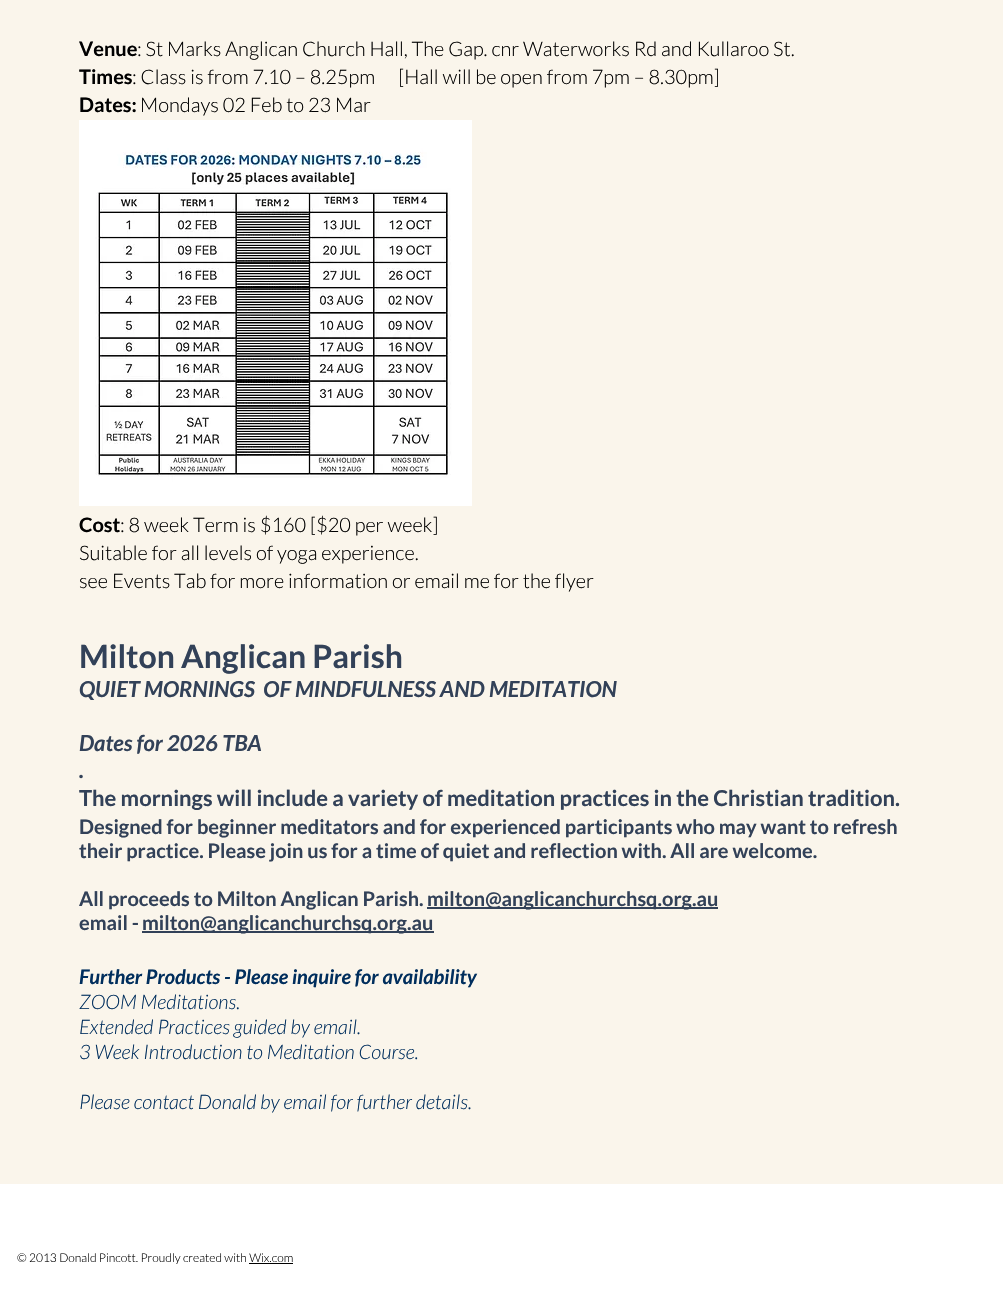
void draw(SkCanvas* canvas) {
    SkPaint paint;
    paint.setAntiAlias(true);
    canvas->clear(0xFFFFFFFF);
    paint.setColor(0xFFFAF5EB);
    canvas->drawRect(SkRect::MakeXYWH(0, 0, 1003, 1184), paint);
    SkFont font1(fontMgr->matchFamilyStyle("Lato", SkFontStyle::Bold()), 20);
    font1.setSubpixel(true);
    paint.setColor(0xFF000000);
    canvas->drawString("Venue", 79, 56, font1, paint);
    SkFont font2(fontMgr->matchFamilyStyle("Lato", SkFontStyle(300, SkFontStyle::kNormal_Width, SkFontStyle::kUpright_Slant)), 20);
    font2.setSubpixel(true);
    canvas->drawString(": St Marks Anglican Church Hall, The Gap. cnr Waterworks Rd and Kullaroo St.", 137, 56, font2, paint);
    canvas->drawString("Times", 79, 84, font1, paint);
    canvas->drawString(": Class is from 7.10 – 8.25pm      [Hall will be open from 7pm – 8.30pm]", 132, 84, font2, paint);
    canvas->drawString("Dates:", 79, 112, font1, paint);
    canvas->drawString("Mondays 02 Feb to 23 Mar", 140, 112, font2, paint);
    canvas->drawString("Cost", 79, 532, font1, paint);
    canvas->drawString(": 8 week Term is $160 [$20 per week]", 120, 532, font2, paint);
    canvas->drawString("Suitable for all levels of yoga experience.", 79, 560, font2, paint);
    canvas->drawString("see Events Tab for more information or email me for the flyer", 79, 588, font2, paint);
    SkFont font3(fontMgr->matchFamilyStyle("Lato", SkFontStyle::Bold()), 32);
    font3.setSubpixel(true);
    paint.setColor(0xFF324158);
    canvas->drawString("Milton Anglican Parish", 79, 668, font3, paint);
    SkFont font4(fontMgr->matchFamilyStyle("Lato", SkFontStyle::BoldItalic()), 22);
    font4.setSubpixel(true);
    canvas->drawString("QUIET MORNINGS  OF MINDFULNESS AND MEDITATION", 79, 697, font4, paint);
    canvas->drawString("Dates for 2026 TBA", 79, 751, font4, paint);
    canvas->drawString(".", 79, 778, font4, paint);
    SkFont font5(fontMgr->matchFamilyStyle("Lato", SkFontStyle::Bold()), 22);
    font5.setSubpixel(true);
    canvas->drawString("The mornings will include a variety of meditation practices in the Christian tradition.", 79, 806, font5, paint);
    canvas->drawString("Designed for beginner meditators and for experienced participants who may want to refresh", 79, 834, font1, paint);
    canvas->drawString("their practice. Please join us for a time of quiet and reflection with. All are welcome.", 79, 858, font1, paint);
    canvas->drawString("All proceeds to Milton Anglican Parish.", 79, 906, font1, paint);
    canvas->drawRect(SkRect::MakeXYWH(427, 907, 291, 2), paint);
    canvas->drawString("milton@anglicanchurchsq.org.au", 427, 906, font1, paint);
    canvas->drawString("email -", 79, 930, font1, paint);
    canvas->drawRect(SkRect::MakeXYWH(142, 931, 292, 2), paint);
    canvas->drawString("milton@anglicanchurchsq.org.au", 142, 930, font1, paint);
    SkFont font6(fontMgr->matchFamilyStyle("Lato", SkFontStyle::BoldItalic()), 20);
    font6.setSubpixel(true);
    paint.setColor(0xFF002E5D);
    canvas->drawString("Further Products - Please inquire for availability", 79, 984, font6, paint);
    SkFont font7(fontMgr->matchFamilyStyle("Lato", SkFontStyle(300, SkFontStyle::kNormal_Width, SkFontStyle::kItalic_Slant)), 20);
    font7.setSubpixel(true);
    canvas->drawString("ZOOM Meditations.", 79, 1009, font7, paint);
    canvas->drawString("Extended Practices guided by email.", 79, 1034, font7, paint);
    canvas->drawString("3 Week Introduction to Meditation Course.", 79, 1059, font7, paint);
    canvas->drawString("Please contact Donald by email for further details.", 79, 1109, font7, paint);
    canvas->drawImageRect(SkImages::DeferredFromEncodedData(SkData::MakeFromFileName("img1.png")), SkRect::MakeXYWH(79, 120, 393, 386), SkSamplingOptions());
    SkFont font8(fontMgr->matchFamilyStyle("Lato", SkFontStyle(300, SkFontStyle::kNormal_Width, SkFontStyle::kUpright_Slant)), 12);
    font8.setSubpixel(true);
    paint.setColor(0xFF000000);
    canvas->drawString("© 2013 Donald Pincott. Proudly created with Wix.com", 17, 1262, font8, paint);
    canvas->drawRect(SkRect::MakeXYWH(249, 1263, 44, 1), paint);
}
